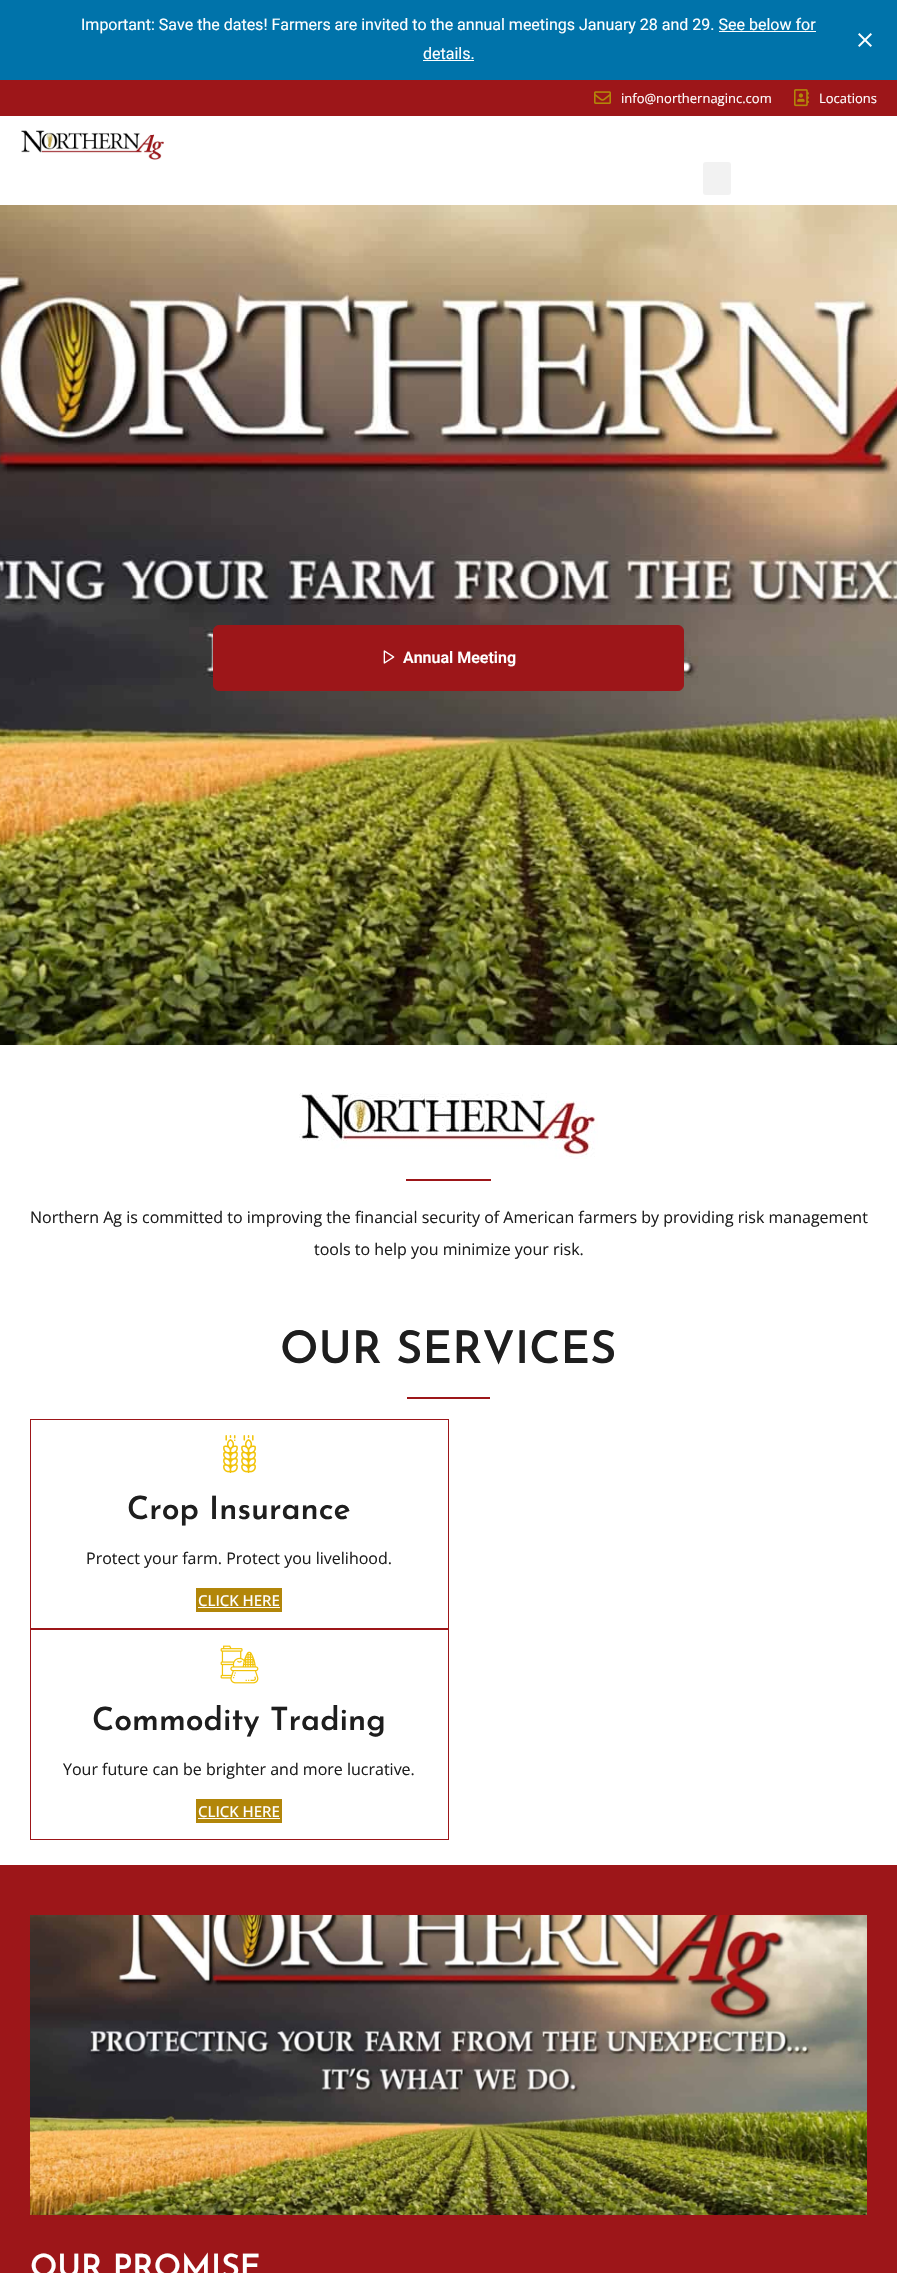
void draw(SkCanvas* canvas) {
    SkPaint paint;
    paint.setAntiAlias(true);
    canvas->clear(0xFFFFFFFF);
    paint.setColor(0xFF0073AA);
    canvas->drawRect(SkRect::MakeXYWH(0, 0, 897, 80), paint);
    SkFont font1(fontMgr->matchFamilyStyle("Roboto", SkFontStyle::Normal()), 16);
    font1.setSubpixel(true);
    paint.setColor(0xFFFFFFFF);
    canvas->drawString("Important: Save the dates! Farmers are invited to the annual meetings January 28 and 29. See below for", 81, 30, font1, paint);
    canvas->drawString("details.", 423, 59, font1, paint);
    canvas->drawRect(SkRect::MakeXYWH(719, 31, 97, 1), paint);
    canvas->drawRect(SkRect::MakeXYWH(423, 60, 51, 1), paint);
    canvas->drawImageRect(SkImages::DeferredFromEncodedData(SkData::MakeFromFileName("img1.png")), SkRect::MakeXYWH(858, 33, 14, 14), SkSamplingOptions());
    paint.setColor(0xFF9D1619);
    canvas->drawRect(SkRect::MakeXYWH(0, 80, 897, 36), paint);
    canvas->drawImageRect(SkImages::DeferredFromEncodedData(SkData::MakeFromFileName("img2.png")), SkRect::MakeXYWH(594, 91, 17, 13), SkSamplingOptions());
    SkFont font2(fontMgr->matchFamilyStyle("Open Sans", SkFontStyle::Normal()), 13);
    font2.setSubpixel(true);
    paint.setColor(0xFFFFFFFF);
    canvas->drawString("info@northernaginc.com", 621, 103, font2, paint);
    canvas->drawImageRect(SkImages::DeferredFromEncodedData(SkData::MakeFromFileName("img3.png")), SkRect::MakeXYWH(794, 89, 15, 18), SkSamplingOptions());
    canvas->drawString("Locations", 819, 103, font2, paint);
    canvas->drawImageRect(SkImages::DeferredFromEncodedData(SkData::MakeFromFileName("img4.png")), SkRect::MakeXYWH(21, 130, 143, 30), SkSamplingOptions());
    paint.setColor(0xFFF2F2F2);
    canvas->drawRoundRect(SkRect::MakeXYWH(703, 162, 28, 33), 3, 3, paint);
    canvas->drawImageRect(SkImages::DeferredFromEncodedData(SkData::MakeFromFileName("img5.png")), SkRect::MakeXYWH(0, 205, 897, 840), SkSamplingOptions());
    paint.setColor(0xFF9D1619);
    canvas->drawRoundRect(SkRect::MakeXYWH(213.5f, 625.5f, 470, 65), 5.5f, 5.5f, paint);
    paint.setStyle(SkPaint::kStroke_Style);
    paint.setStrokeWidth(1);
    canvas->drawRoundRect(SkRect::MakeXYWH(213.5f, 625.5f, 470, 65), 5.5f, 5.5f, paint);
    canvas->drawImageRect(SkImages::DeferredFromEncodedData(SkData::MakeFromFileName("img6.png")), SkRect::MakeXYWH(383, 650, 12, 14), SkSamplingOptions());
    SkFont font3(fontMgr->matchFamilyStyle("Roboto", SkFontStyle(600, SkFontStyle::kNormal_Width, SkFontStyle::kUpright_Slant)), 16);
    font3.setSubpixel(true);
    paint.setStyle(SkPaint::kFill_Style);
    paint.setColor(0xFFFFFFFF);
    canvas->drawString("Annual Meeting", 403, 663, font3, paint);
    canvas->drawImageRect(SkImages::DeferredFromEncodedData(SkData::MakeFromFileName("img7.png")), SkRect::MakeXYWH(299, 1093, 299, 66), SkSamplingOptions());
    paint.setColor(0xFF9D1619);
    canvas->drawRect(SkRect::MakeXYWH(406, 1179, 85, 2), paint);
    SkFont font4(fontMgr->matchFamilyStyle("Open Sans", SkFontStyle::Normal()), 16);
    font4.setSubpixel(true);
    paint.setColor(0xFF1E1E1E);
    canvas->drawString("Northern Ag is committed to improving the financial security of American farmers by providing risk management", 30, 1223, font4, paint);
    canvas->drawString("tools to help you minimize your risk.", 314, 1255, font4, paint);
    SkFont font5(fontMgr->matchFamilyStyle("Josefin Sans", SkFontStyle(600, SkFontStyle::kNormal_Width, SkFontStyle::kUpright_Slant)), 45);
    font5.setSubpixel(true);
    canvas->drawString("OUR SERVICES", 280, 1363, font5, paint);
    paint.setColor(0xFF9D1619);
    canvas->drawRect(SkRect::MakeXYWH(407, 1397, 83, 2), paint);
    paint.setStyle(SkPaint::kStroke_Style);
    canvas->drawRect(SkRect::MakeXYWH(30.5f, 1419.5f, 418, 209), paint);
    canvas->drawImageRect(SkImages::DeferredFromEncodedData(SkData::MakeFromFileName("img8.png")), SkRect::MakeXYWH(223, 1435, 33, 38), SkSamplingOptions());
    SkFont font6(fontMgr->matchFamilyStyle("Josefin Sans", SkFontStyle(600, SkFontStyle::kNormal_Width, SkFontStyle::kUpright_Slant)), 32);
    font6.setSubpixel(true);
    paint.setStyle(SkPaint::kFill_Style);
    paint.setColor(0xFF1E1E1E);
    canvas->drawString("Crop Insurance", 127, 1519, font6, paint);
    canvas->drawString("Protect your farm. Protect you livelihood.", 86, 1564, font4, paint);
    paint.setColor(0xFFB28609);
    canvas->drawRect(SkRect::MakeXYWH(196, 1588, 86, 24), paint);
    SkFont font7(fontMgr->matchFamilyStyle("Open Sans", SkFontStyle(500, SkFontStyle::kNormal_Width, SkFontStyle::kUpright_Slant)), 15);
    font7.setSubpixel(true);
    paint.setColor(0xFFFFFFFF);
    canvas->drawString("CLICK HERE", 198, 1606, font7, paint);
    canvas->drawRect(SkRect::MakeXYWH(198, 1607, 82, 1), paint);
    paint.setStyle(SkPaint::kStroke_Style);
    paint.setColor(0xFF9D1619);
    canvas->drawRect(SkRect::MakeXYWH(30.5f, 1629.5f, 418, 210), paint);
    canvas->drawImageRect(SkImages::DeferredFromEncodedData(SkData::MakeFromFileName("img9.png")), SkRect::MakeXYWH(220, 1645, 39, 39), SkSamplingOptions());
    paint.setStyle(SkPaint::kFill_Style);
    paint.setColor(0xFF1E1E1E);
    canvas->drawString("Commodity Trading", 92, 1730, font6, paint);
    canvas->drawString("Your future can be brighter and more lucrative.", 63, 1775, font4, paint);
    paint.setColor(0xFFB28609);
    canvas->drawRect(SkRect::MakeXYWH(196, 1799, 86, 24), paint);
    paint.setColor(0xFFFFFFFF);
    canvas->drawString("CLICK HERE", 198, 1817, font7, paint);
    canvas->drawRect(SkRect::MakeXYWH(198, 1818, 82, 1), paint);
    paint.setColor(0xFF9D1619);
    canvas->drawRect(SkRect::MakeXYWH(0, 1865, 897, 408), paint);
    canvas->drawImageRect(SkImages::DeferredFromEncodedData(SkData::MakeFromFileName("img10.png")), SkRect::MakeXYWH(30, 1915, 837, 300), SkSamplingOptions());
    paint.setColor(0xFFFFFFFF);
    canvas->drawString("OUR PROMISE", 30, 2277, font6, paint);
}
